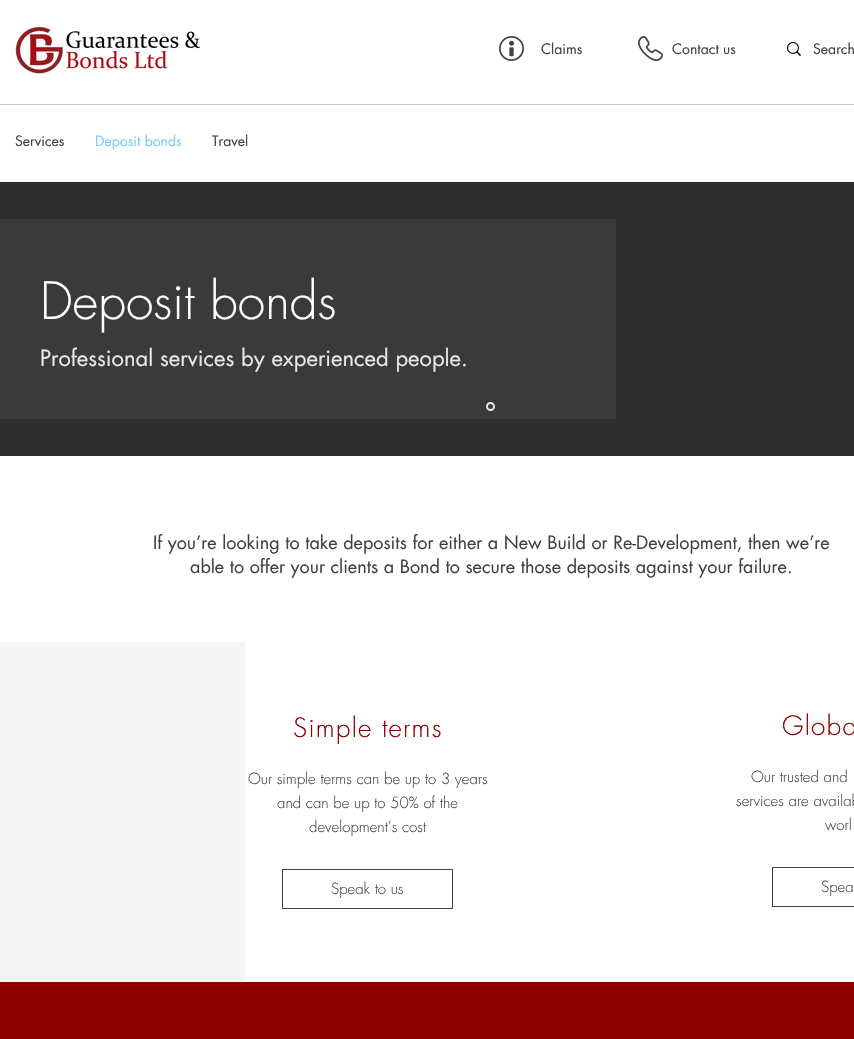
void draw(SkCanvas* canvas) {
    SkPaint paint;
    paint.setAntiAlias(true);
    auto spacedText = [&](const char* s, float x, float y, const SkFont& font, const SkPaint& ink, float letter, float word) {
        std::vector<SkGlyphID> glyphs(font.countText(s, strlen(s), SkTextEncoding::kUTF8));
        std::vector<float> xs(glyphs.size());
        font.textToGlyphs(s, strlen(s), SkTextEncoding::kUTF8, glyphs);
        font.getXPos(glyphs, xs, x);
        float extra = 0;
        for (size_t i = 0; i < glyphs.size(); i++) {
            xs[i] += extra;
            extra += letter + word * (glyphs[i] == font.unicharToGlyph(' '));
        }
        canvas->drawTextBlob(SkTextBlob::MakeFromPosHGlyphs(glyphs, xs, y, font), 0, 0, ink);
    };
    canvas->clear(0xFFFFFFFF);
    canvas->drawImageRect(SkImages::DeferredFromEncodedData(SkData::MakeFromFileName("img1.png")), SkRect::MakeXYWH(15, 26, 186, 48), SkSamplingOptions());
    canvas->drawImageRect(SkImages::DeferredFromEncodedData(SkData::MakeFromFileName("img2.png")), SkRect::MakeXYWH(499, 36, 25, 25), SkSamplingOptions());
    SkFont font1(fontMgr->matchFamilyStyle("futura", SkFontStyle::Normal()), 14);
    font1.setSubpixel(true);
    paint.setColor(0xFF414141);
    canvas->drawString("Claims", 541, 54, font1, paint);
    canvas->drawImageRect(SkImages::DeferredFromEncodedData(SkData::MakeFromFileName("img3.png")), SkRect::MakeXYWH(638, 36, 25, 25), SkSamplingOptions());
    canvas->drawString("Contact us", 672, 54, font1, paint);
    canvas->drawImageRect(SkImages::DeferredFromEncodedData(SkData::MakeFromFileName("img4.png")), SkRect::MakeXYWH(787, 42, 14, 14), SkSamplingOptions());
    canvas->drawString("Search", 813, 54, font1, paint);
    paint.setColor(0xFFC7C7C7);
    canvas->drawRect(SkRect::MakeXYWH(0, 104, 854, 1), paint);
    paint.setColor(0xFF414141);
    canvas->drawString("Services", 15, 146, font1, paint);
    paint.setColor(0xFF7FCCF7);
    canvas->drawString("Deposit bonds", 95, 146, font1, paint);
    paint.setColor(0xFF414141);
    canvas->drawString("Travel", 212, 146, font1, paint);
    paint.setColor(0xFF2E2E2E);
    canvas->drawRect(SkRect::MakeXYWH(0, 182, 854, 274), paint);
    paint.setColor(0xFF3A3A3A);
    canvas->drawRect(SkRect::MakeXYWH(0, 219, 616, 200), paint);
    SkFont font2(fontMgr->matchFamilyStyle("futura", SkFontStyle(300, SkFontStyle::kNormal_Width, SkFontStyle::kUpright_Slant)), 50);
    font2.setSubpixel(true);
    paint.setColor(0xFFFFFFFF);
    canvas->drawString("Deposit bonds", 40, 319, font2, paint);
    SkFont font3(fontMgr->matchFamilyStyle("futura", SkFontStyle::Normal()), 22);
    font3.setSubpixel(true);
    paint.setColor(0xFFE8E6E6);
    canvas->drawString("Professional services by experienced people.", 40, 366, font3, paint);
    paint.setStyle(SkPaint::kStroke_Style);
    paint.setStrokeWidth(2);
    canvas->drawCircle(490.5f, 406.5f, 3.5f, paint);
    SkFont font4(fontMgr->matchFamilyStyle("futura", SkFontStyle::Normal()), 18);
    font4.setSubpixel(true);
    paint.setStyle(SkPaint::kFill_Style);
    paint.setColor(0xFF414141);
    canvas->drawString("If you’re looking to take deposits for either a New Build or Re-Development, then we’re", 153, 549, font4, paint);
    canvas->drawString("able to offer your clients a Bond to secure those deposits against your failure.", 190, 573, font4, paint);
    paint.setColor(0xFFF5F5F5);
    canvas->drawRect(SkRect::MakeXYWH(0, 642, 245, 340), paint);
    SkFont font5(fontMgr->matchFamilyStyle("futura", SkFontStyle(300, SkFontStyle::kNormal_Width, SkFontStyle::kUpright_Slant)), 26);
    font5.setSubpixel(true);
    paint.setColor(0xFF8B0000);
    spacedText("Simple terms", 293, 737, font5, paint, 1.25f, 0);
    SkFont font6(fontMgr->matchFamilyStyle("futura", SkFontStyle(300, SkFontStyle::kNormal_Width, SkFontStyle::kUpright_Slant)), 15);
    font6.setSubpixel(true);
    paint.setColor(0xFF414141);
    canvas->drawString("Our simple terms can be up to 3 years", 248, 784, font6, paint);
    canvas->drawString("and can be up to 50% of the", 277, 808, font6, paint);
    canvas->drawString("development’s cost", 309, 832, font6, paint);
    paint.setStyle(SkPaint::kStroke_Style);
    paint.setStrokeWidth(1);
    canvas->drawRect(SkRect::MakeXYWH(282.5f, 869.5f, 170, 39), paint);
    paint.setStyle(SkPaint::kFill_Style);
    canvas->drawString("Speak to us", 331, 894, font6, paint);
    paint.setColor(0xFF8B0000);
    spacedText("Globa", 782, 735, font5, paint, 1.25f, 0);
    paint.setColor(0xFF414141);
    canvas->drawString("Our trusted and", 751, 782, font6, paint);
    canvas->drawString("services are availab", 736, 806, font6, paint);
    canvas->drawString("worl", 825, 830, font6, paint);
    paint.setStyle(SkPaint::kStroke_Style);
    canvas->drawRect(SkRect::MakeXYWH(772.5f, 867.5f, 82, 39), paint);
    paint.setStyle(SkPaint::kFill_Style);
    canvas->drawString("Spea", 821, 892, font6, paint);
    paint.setColor(0xFF8B0000);
    canvas->drawRect(SkRect::MakeXYWH(0, 982, 854, 57), paint);
}
